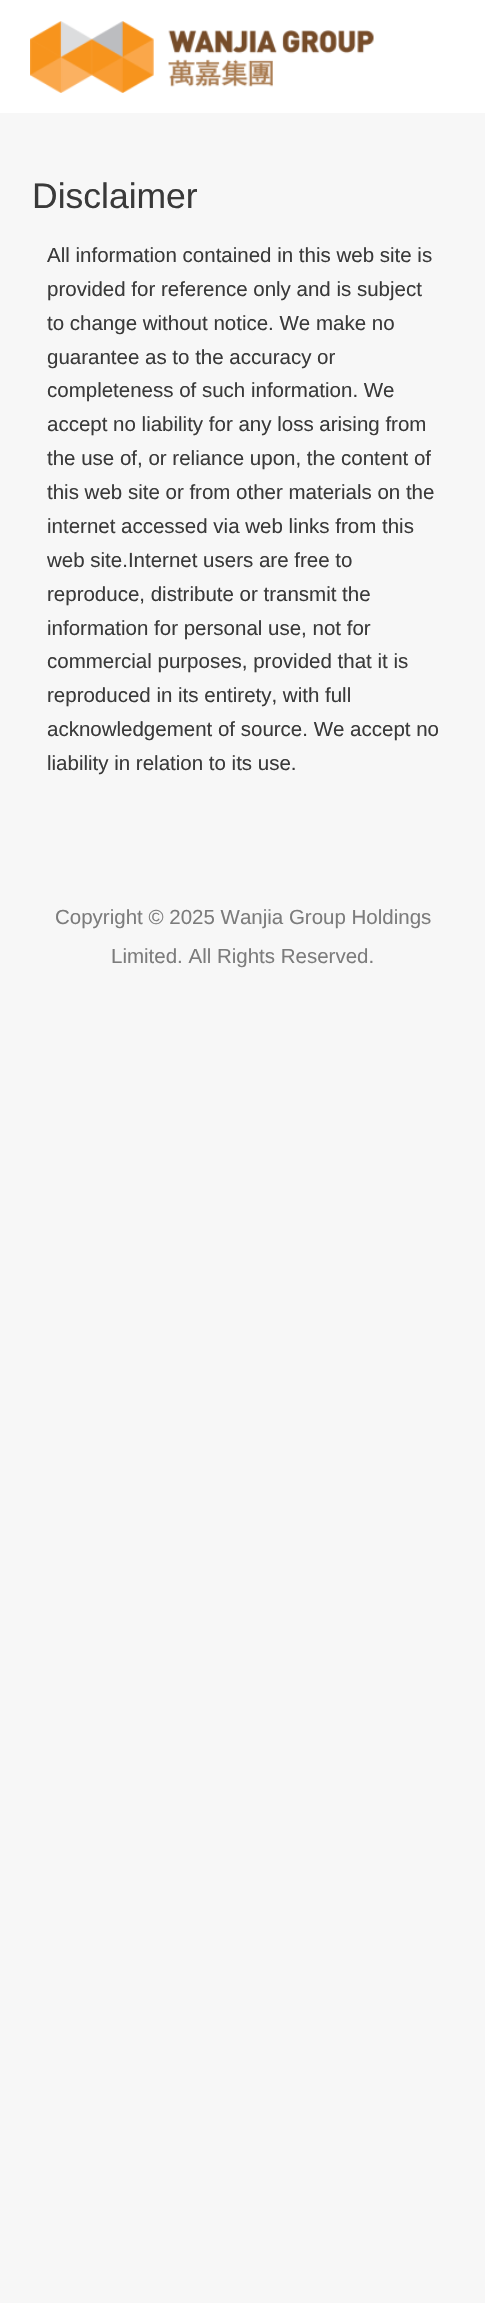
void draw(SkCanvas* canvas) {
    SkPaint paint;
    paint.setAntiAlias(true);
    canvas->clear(0xFFF7F7F7);
    paint.setColor(0xFFFFFFFF);
    canvas->drawRect(SkRect::MakeXYWH(0, 0, 485, 113), paint);
    canvas->drawImageRect(SkImages::DeferredFromEncodedData(SkData::MakeFromFileName("img1.png")), SkRect::MakeXYWH(30, 21, 344, 72), SkSamplingOptions());
    SkFont font1(fontMgr->matchFamilyStyle("Liberation Sans", SkFontStyle::Normal()), 35.5f);
    font1.setSubpixel(true);
    paint.setColor(0xFF3A3A3A);
    canvas->drawString("Disclaimer", 32, 208, font1, paint);
    SkFont font2(fontMgr->matchFamilyStyle("Liberation Sans", SkFontStyle::Normal()), 20.5f);
    font2.setSubpixel(true);
    canvas->drawString("All information contained in this web site is", 47, 262, font2, paint);
    canvas->drawString("provided for reference only and is subject", 47, 296, font2, paint);
    canvas->drawString("to change without notice. We make no", 47, 330, font2, paint);
    canvas->drawString("guarantee as to the accuracy or", 47, 364, font2, paint);
    canvas->drawString("completeness of such information. We", 47, 397, font2, paint);
    canvas->drawString("accept no liability for any loss arising from", 47, 431, font2, paint);
    canvas->drawString("the use of, or reliance upon, the content of", 47, 465, font2, paint);
    canvas->drawString("this web site or from other materials on the", 47, 499, font2, paint);
    canvas->drawString("internet accessed via web links from this", 47, 533, font2, paint);
    canvas->drawString("web site.Internet users are free to", 47, 567, font2, paint);
    canvas->drawString("reproduce, distribute or transmit the", 47, 601, font2, paint);
    canvas->drawString("information for personal use, not for", 47, 635, font2, paint);
    canvas->drawString("commercial purposes, provided that it is", 47, 668, font2, paint);
    canvas->drawString("reproduced in its entirety, with full", 47, 702, font2, paint);
    canvas->drawString("acknowledgement of source. We accept no", 47, 736, font2, paint);
    canvas->drawString("liability in relation to its use.", 47, 770, font2, paint);
    paint.setColor(0xFF7C7C7C);
    canvas->drawString("Copyright © 2025 Wanjia Group Holdings", 55, 924, font2, paint);
    canvas->drawString("Limited. All Rights Reserved.", 111, 963, font2, paint);
}
